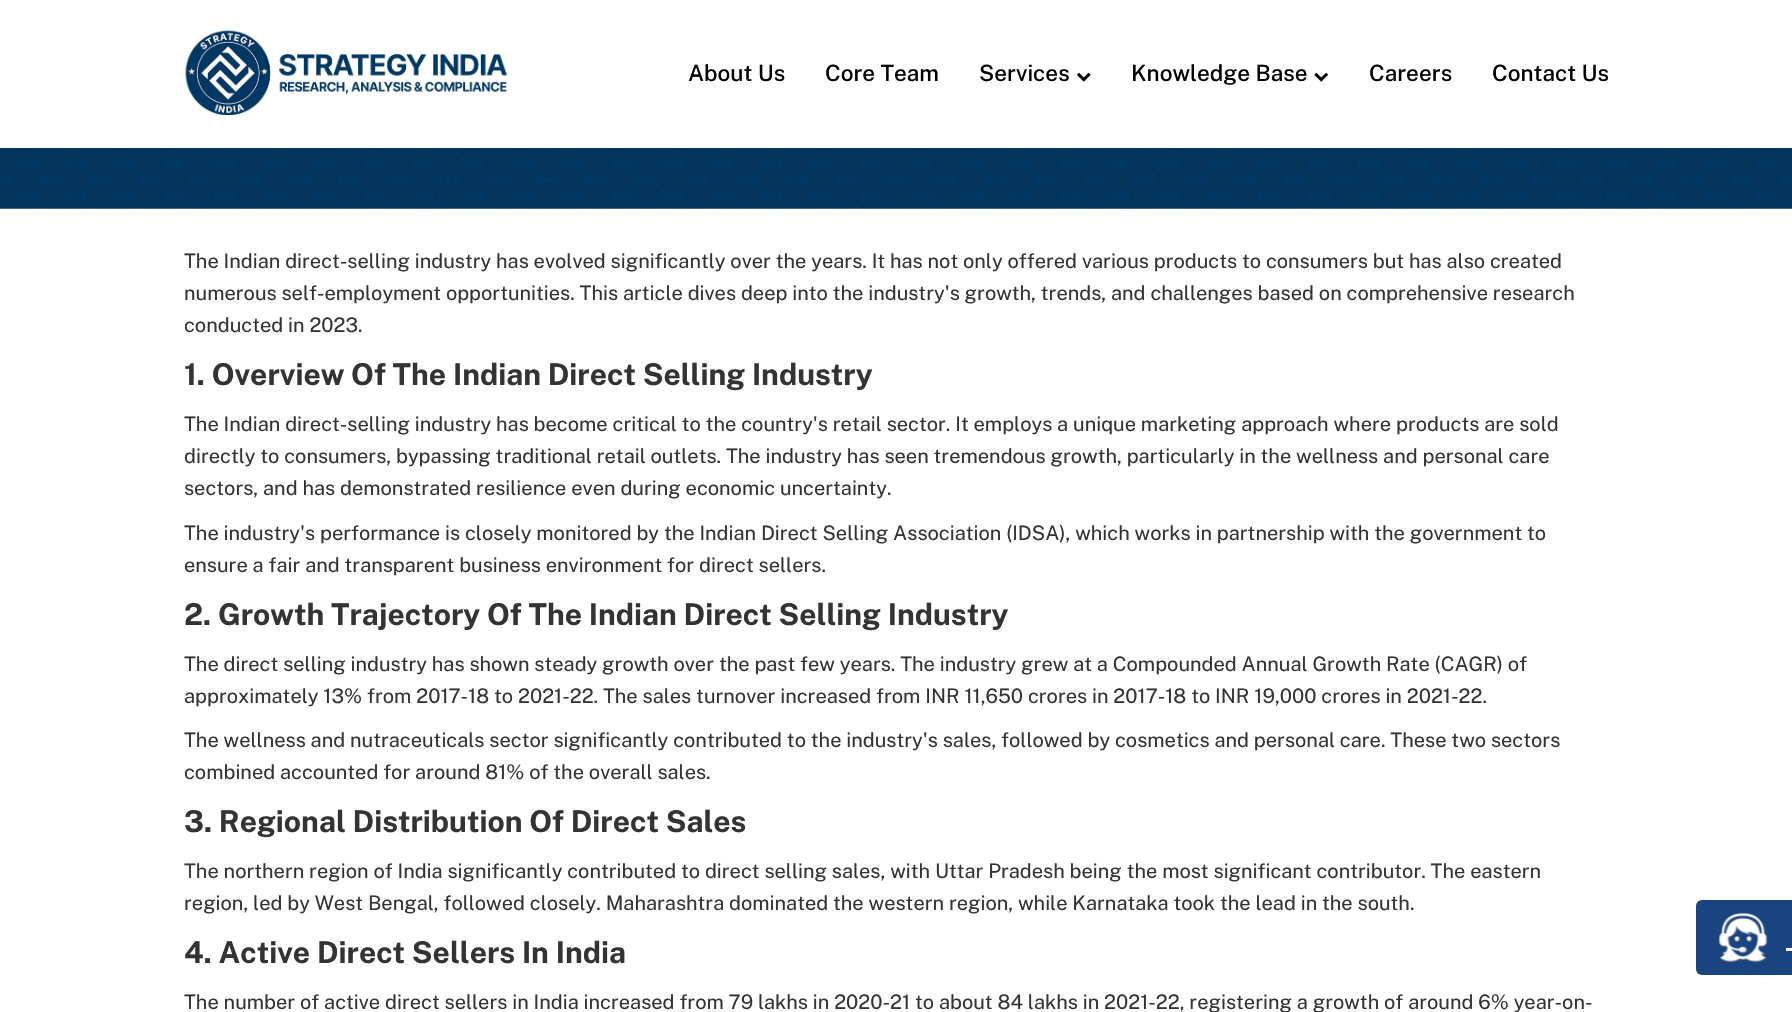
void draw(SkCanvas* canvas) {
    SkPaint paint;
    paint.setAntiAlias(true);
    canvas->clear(0xFFFFFFFF);
    canvas->drawImageRect(SkImages::DeferredFromEncodedData(SkData::MakeFromFileName("img1.png")), SkRect::MakeXYWH(185, 30, 323, 85), SkSamplingOptions());
    SkFont font1(fontMgr->matchFamilyStyle("Public Sans", SkFontStyle(500, SkFontStyle::kNormal_Width, SkFontStyle::kUpright_Slant)), 22.5f);
    font1.setSubpixel(true);
    paint.setColor(0xFF000000);
    canvas->drawString("About Us", 688, 81, font1, paint);
    canvas->drawString("Core Team", 825, 81, font1, paint);
    canvas->drawString("Services", 979, 81, font1, paint);
    canvas->drawImageRect(SkImages::DeferredFromEncodedData(SkData::MakeFromFileName("img2.png")), SkRect::MakeXYWH(1077, 72, 14, 10), SkSamplingOptions());
    canvas->drawString("Knowledge Base", 1131, 81, font1, paint);
    canvas->drawImageRect(SkImages::DeferredFromEncodedData(SkData::MakeFromFileName("img3.png")), SkRect::MakeXYWH(1314, 72, 14, 10), SkSamplingOptions());
    canvas->drawString("Careers", 1369, 81, font1, paint);
    canvas->drawString("Contact Us", 1492, 81, font1, paint);
    canvas->drawImageRect(SkImages::DeferredFromEncodedData(SkData::MakeFromFileName("img4.png")), SkRect::MakeXYWH(0, 148, 1792, 61), SkSamplingOptions());
    SkFont font2(fontMgr->matchFamilyStyle("Public Sans", SkFontStyle::Normal()), 20);
    font2.setSubpixel(true);
    paint.setColor(0xFF333333);
    canvas->drawString("The Indian direct-selling industry has evolved significantly over the years. It has not only offered various products to consumers but has also created", 184, 268, font2, paint);
    canvas->drawString("numerous self-employment opportunities. This article dives deep into the industry's growth, trends, and challenges based on comprehensive research", 184, 300, font2, paint);
    canvas->drawString("conducted in 2023.", 184, 332, font2, paint);
    SkFont font3(fontMgr->matchFamilyStyle("Public Sans", SkFontStyle::Bold()), 30);
    font3.setSubpixel(true);
    canvas->drawString("1. Overview Of The Indian Direct Selling Industry", 184, 385, font3, paint);
    canvas->drawString("The Indian direct-selling industry has become critical to the country's retail sector. It employs a unique marketing approach where products are sold", 184, 431, font2, paint);
    canvas->drawString("directly to consumers, bypassing traditional retail outlets. The industry has seen tremendous growth, particularly in the wellness and personal care", 184, 463, font2, paint);
    canvas->drawString("sectors, and has demonstrated resilience even during economic uncertainty.", 184, 495, font2, paint);
    canvas->drawString("The industry's performance is closely monitored by the Indian Direct Selling Association (IDSA), which works in partnership with the government to", 184, 540, font2, paint);
    canvas->drawString("ensure a fair and transparent business environment for direct sellers.", 184, 572, font2, paint);
    canvas->drawString("2. Growth Trajectory Of The Indian Direct Selling Industry", 184, 625, font3, paint);
    canvas->drawString("The direct selling industry has shown steady growth over the past few years. The industry grew at a Compounded Annual Growth Rate (CAGR) of", 184, 671, font2, paint);
    canvas->drawString("approximately 13% from 2017-18 to 2021-22. The sales turnover increased from INR 11,650 crores in 2017-18 to INR 19,000 crores in 2021-22.", 184, 703, font2, paint);
    canvas->drawString("The wellness and nutraceuticals sector significantly contributed to the industry's sales, followed by cosmetics and personal care. These two sectors", 184, 747, font2, paint);
    canvas->drawString("combined accounted for around 81% of the overall sales.", 184, 779, font2, paint);
    canvas->drawString("3. Regional Distribution Of Direct Sales", 184, 832, font3, paint);
    canvas->drawString("The northern region of India significantly contributed to direct selling sales, with Uttar Pradesh being the most significant contributor. The eastern", 184, 878, font2, paint);
    canvas->drawString("region, led by West Bengal, followed closely. Maharashtra dominated the western region, while Karnataka took the lead in the south.", 184, 910, font2, paint);
    canvas->drawString("4. Active Direct Sellers In India", 184, 963, font3, paint);
    canvas->drawString("The number of active direct sellers in India increased from 79 lakhs in 2020-21 to about 84 lakhs in 2021-22, registering a growth of around 6% year-on-", 184, 1009, font2, paint);
    paint.setColor(0xFF1A4480);
    canvas->drawRoundRect(SkRect::MakeXYWH(1696, 900, 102, 75), 6, 6, paint);
    canvas->drawImageRect(SkImages::DeferredFromEncodedData(SkData::MakeFromFileName("img5.png")), SkRect::MakeXYWH(1718, 913, 50, 50), SkSamplingOptions());
    paint.setColor(0xFFFFFFFF);
    canvas->drawRect(SkRect::MakeXYWH(1786, 948, 6, 3), paint);
}
